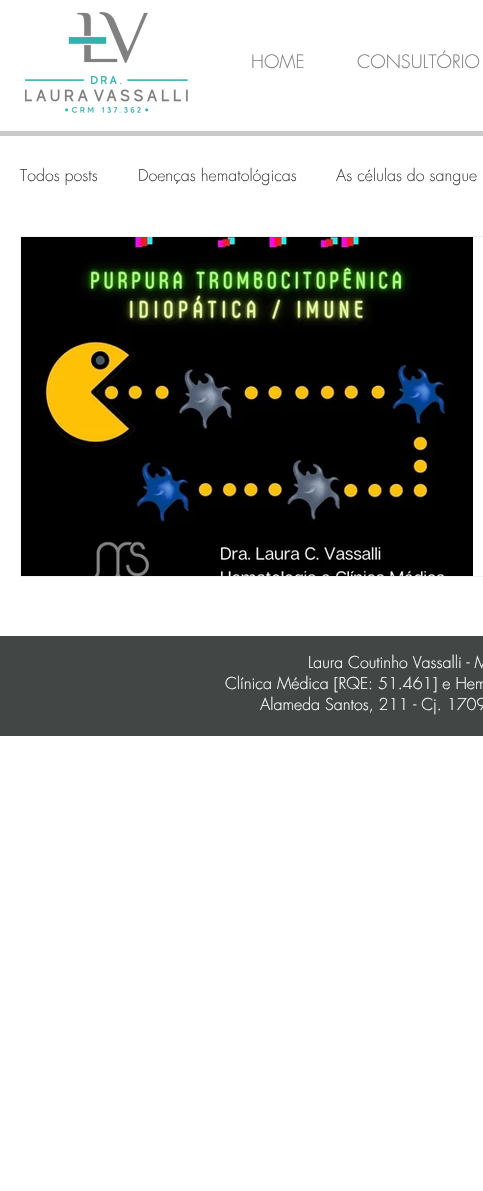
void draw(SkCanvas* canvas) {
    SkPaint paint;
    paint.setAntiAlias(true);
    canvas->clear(0xFFFFFFFF);
    canvas->drawImageRect(SkImages::DeferredFromEncodedData(SkData::MakeFromFileName("img1.png")), SkRect::MakeXYWH(25, 12, 163, 101), SkSamplingOptions());
    SkFont font1(fontMgr->matchFamilyStyle("futura", SkFontStyle(300, SkFontStyle::kNormal_Width, SkFontStyle::kUpright_Slant)), 18);
    font1.setSubpixel(true);
    paint.setColor(0xFF808080);
    canvas->drawString("HOME", 251, 68, font1, paint);
    canvas->drawString("CONSULTÓRIO", 357, 68, font1, paint);
    paint.setColor(0xFFC9C9C9);
    canvas->drawRect(SkRect::MakeXYWH(0, 131, 483, 5), paint);
    SkFont font2(fontMgr->matchFamilyStyle("futura", SkFontStyle(300, SkFontStyle::kNormal_Width, SkFontStyle::kUpright_Slant)), 16);
    font2.setSubpixel(true);
    paint.setColor(0xFF414141);
    canvas->drawString("Todos posts", 20, 181, font2, paint);
    canvas->drawString("Doenças hematológicas", 138, 181, font2, paint);
    canvas->drawString("As células do sangue", 336, 181, font2, paint);
    paint.setStyle(SkPaint::kStroke_Style);
    paint.setStrokeWidth(1);
    paint.setColor(0xFFF2F2F2);
    canvas->drawRect(SkRect::MakeXYWH(20.5f, 236.5f, 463, 340), paint);
    canvas->drawImageRect(SkImages::DeferredFromEncodedData(SkData::MakeFromFileName("img2.png")), SkRect::MakeXYWH(21, 237, 452, 339), SkSamplingOptions());
    paint.setStyle(SkPaint::kFill_Style);
    paint.setColor(0xFF424746);
    canvas->drawRect(SkRect::MakeXYWH(0, 636, 483, 100), paint);
    paint.setColor(0xFFFFFFFF);
    canvas->drawString("Laura Coutinho Vassalli - M", 308, 668, font2, paint);
    canvas->drawString("Clínica Médica [RQE: 51.461] e Hem", 225, 689, font2, paint);
    canvas->drawString("Alameda Santos, 211 - Cj. 1709", 260, 710, font2, paint);
}
